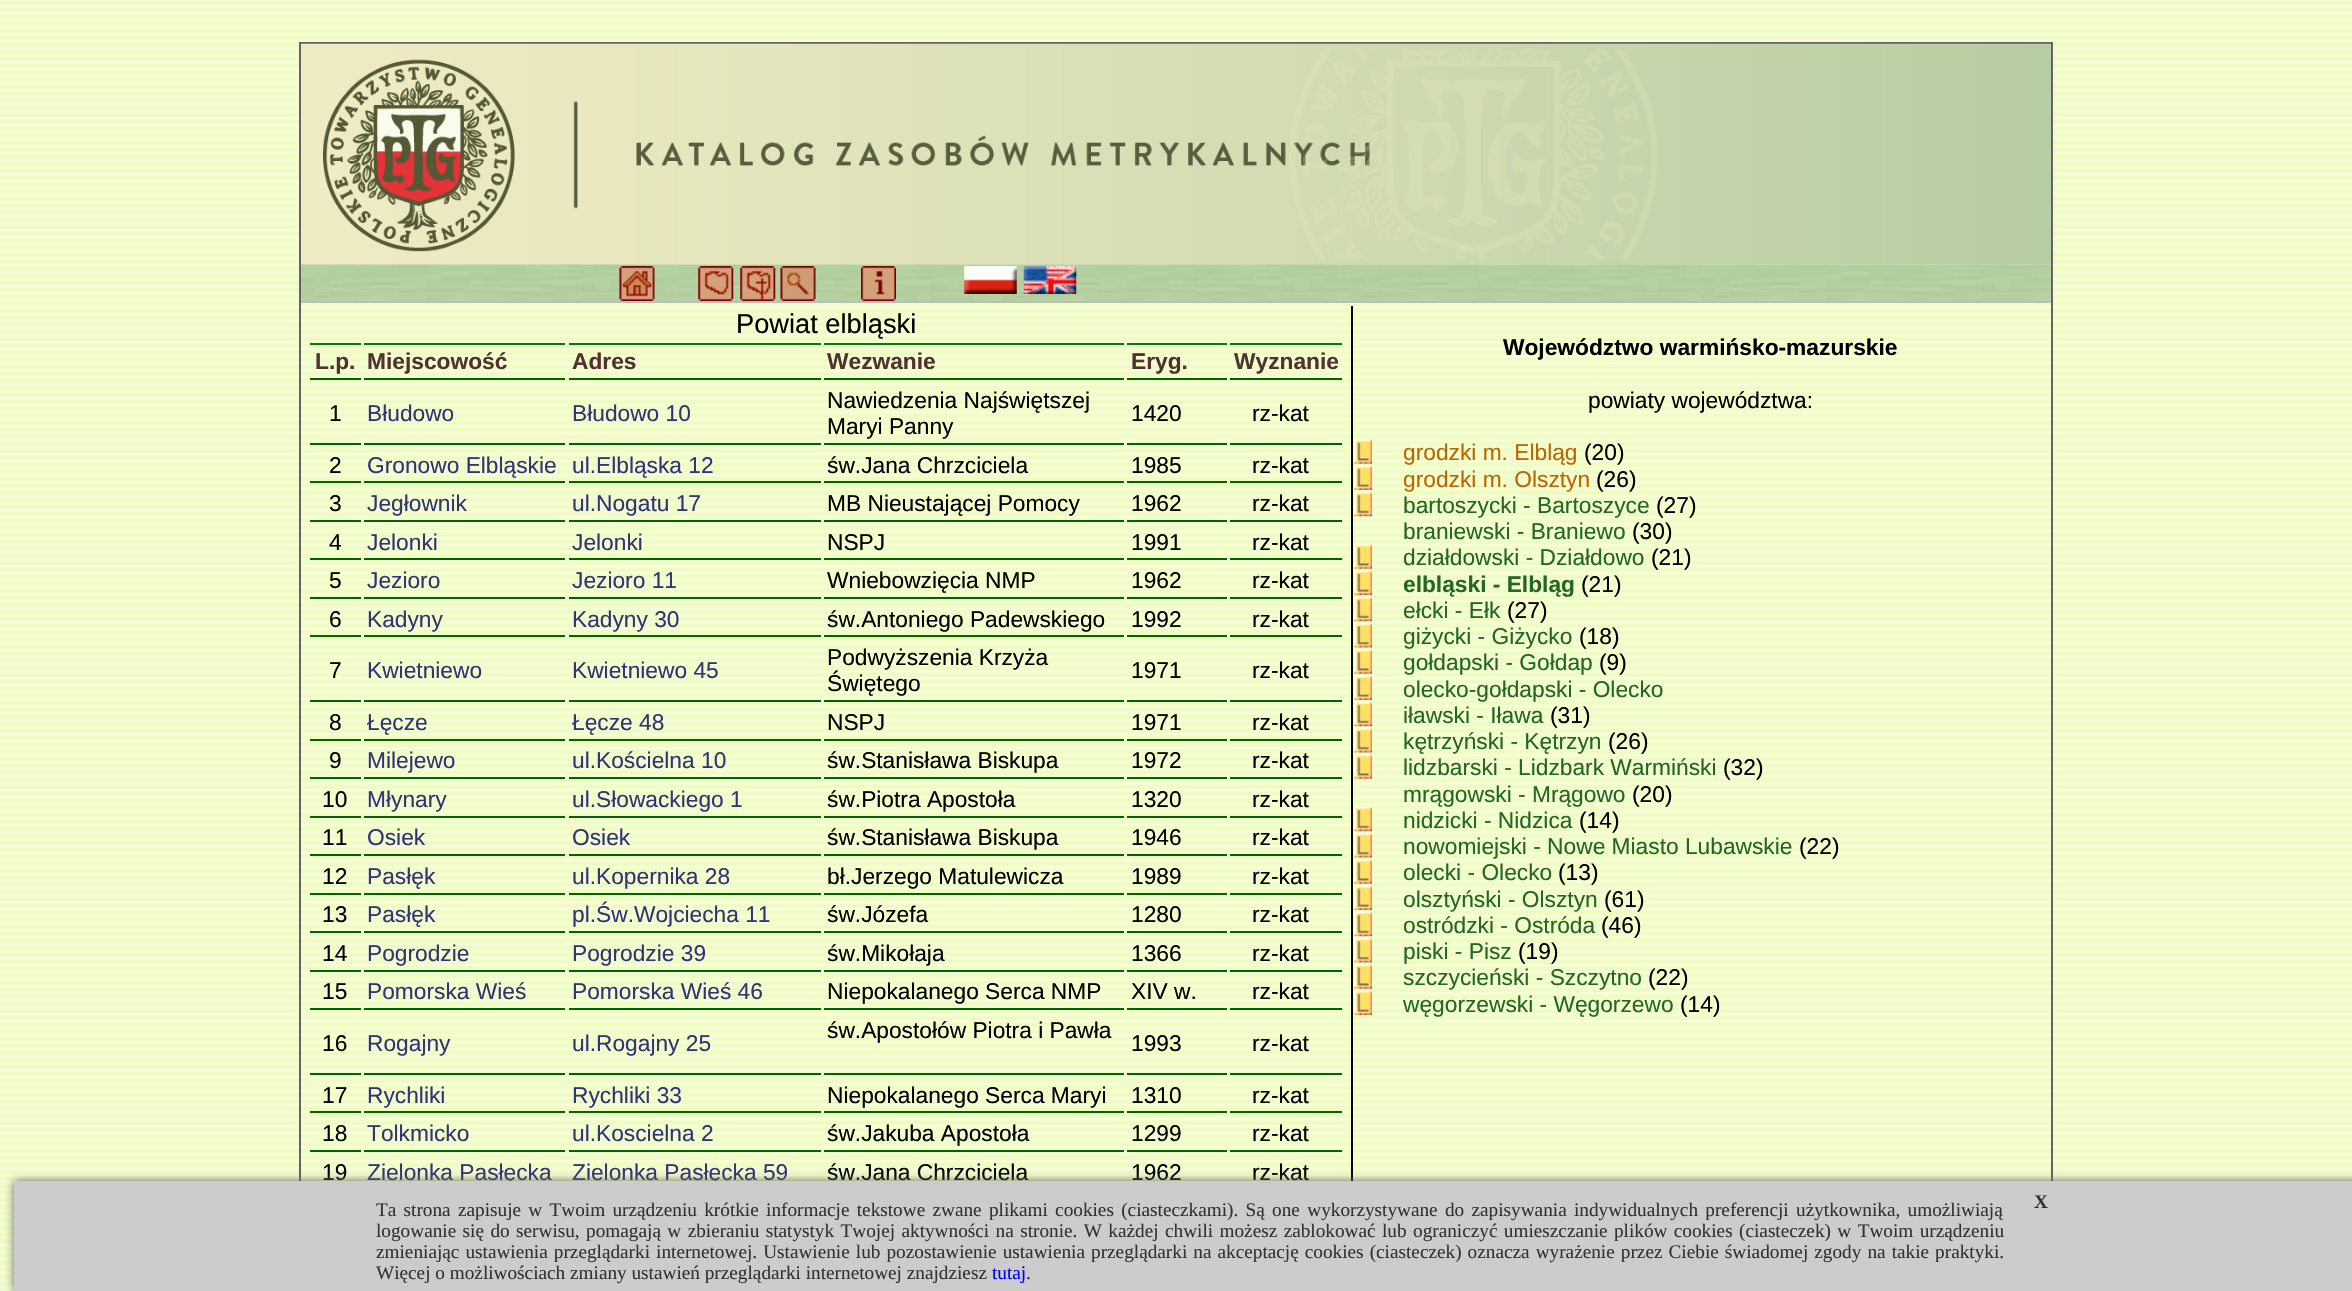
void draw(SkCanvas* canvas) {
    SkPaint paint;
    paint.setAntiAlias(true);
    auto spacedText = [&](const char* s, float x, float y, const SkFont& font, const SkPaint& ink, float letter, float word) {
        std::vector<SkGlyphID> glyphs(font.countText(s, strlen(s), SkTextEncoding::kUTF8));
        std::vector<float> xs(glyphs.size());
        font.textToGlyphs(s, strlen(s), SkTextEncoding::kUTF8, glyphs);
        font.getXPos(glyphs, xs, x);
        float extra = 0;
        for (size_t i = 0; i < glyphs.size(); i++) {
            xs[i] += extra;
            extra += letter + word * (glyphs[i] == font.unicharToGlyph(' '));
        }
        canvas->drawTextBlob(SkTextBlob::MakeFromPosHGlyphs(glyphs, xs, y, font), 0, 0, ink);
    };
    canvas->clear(0xFFFFFFFF);
    canvas->drawImageRect(SkImages::DeferredFromEncodedData(SkData::MakeFromFileName("img1.png")), SkRect::MakeXYWH(0, 0, 2352, 1291), SkSamplingOptions());
    paint.setStyle(SkPaint::kStroke_Style);
    paint.setStrokeWidth(2);
    paint.setColor(0xFF646464);
    canvas->drawRect(SkRect::MakeXYWH(300, 43, 1752, 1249), paint);
    canvas->drawImageRect(SkImages::DeferredFromEncodedData(SkData::MakeFromFileName("img3.png")), SkRect::MakeXYWH(301, 264, 1750, 37), SkSamplingOptions());
    canvas->drawImageRect(SkImages::DeferredFromEncodedData(SkData::MakeFromFileName("img2.png")), SkRect::MakeXYWH(301, 43, 1750, 222), SkSamplingOptions());
    paint.setStyle(SkPaint::kFill_Style);
    paint.setColor(0xFFBEBEBE);
    canvas->drawRect(SkRect::MakeXYWH(301, 301, 1750, 2), paint);
    canvas->drawImageRect(SkImages::DeferredFromEncodedData(SkData::MakeFromFileName("img4.png")), SkRect::MakeXYWH(619, 266, 36, 35), SkSamplingOptions());
    canvas->drawImageRect(SkImages::DeferredFromEncodedData(SkData::MakeFromFileName("img5.png")), SkRect::MakeXYWH(698, 266, 36, 35), SkSamplingOptions());
    canvas->drawImageRect(SkImages::DeferredFromEncodedData(SkData::MakeFromFileName("img6.png")), SkRect::MakeXYWH(740, 266, 36, 35), SkSamplingOptions());
    canvas->drawImageRect(SkImages::DeferredFromEncodedData(SkData::MakeFromFileName("img7.png")), SkRect::MakeXYWH(780, 266, 36, 35), SkSamplingOptions());
    canvas->drawImageRect(SkImages::DeferredFromEncodedData(SkData::MakeFromFileName("img8.png")), SkRect::MakeXYWH(861, 266, 35, 35), SkSamplingOptions());
    canvas->drawImageRect(SkImages::DeferredFromEncodedData(SkData::MakeFromFileName("img9.png")), SkRect::MakeXYWH(964, 266, 53, 28), SkSamplingOptions());
    canvas->drawImageRect(SkImages::DeferredFromEncodedData(SkData::MakeFromFileName("img10.png")), SkRect::MakeXYWH(1023, 266, 54, 28), SkSamplingOptions());
    SkFont font1(fontMgr->matchFamilyStyle("Liberation Sans", SkFontStyle::Normal()), 27.25f);
    font1.setSubpixel(true);
    paint.setColor(0xFF000000);
    canvas->drawString("Powiat elbląski", 736, 333, font1, paint);
    paint.setColor(0xFF008000);
    canvas->drawRect(SkRect::MakeXYWH(310, 343, 51, 2), paint);
    paint.setColor(0xFF006400);
    canvas->drawRect(SkRect::MakeXYWH(310, 378, 51, 2), paint);
    SkFont font2(fontMgr->matchFamilyStyle("Liberation Sans", SkFontStyle::Bold()), 22.75f);
    font2.setSubpixel(true);
    paint.setColor(0xFF513131);
    canvas->drawString("L.p.", 315, 369, font2, paint);
    paint.setColor(0xFF008000);
    canvas->drawRect(SkRect::MakeXYWH(364, 343, 201, 2), paint);
    paint.setColor(0xFF006400);
    canvas->drawRect(SkRect::MakeXYWH(364, 378, 201, 2), paint);
    paint.setColor(0xFF513131);
    canvas->drawString("Miejscowość", 367, 369, font2, paint);
    paint.setColor(0xFF008000);
    canvas->drawRect(SkRect::MakeXYWH(569, 343, 252, 2), paint);
    paint.setColor(0xFF006400);
    canvas->drawRect(SkRect::MakeXYWH(569, 378, 252, 2), paint);
    paint.setColor(0xFF513131);
    canvas->drawString("Adres", 572, 369, font2, paint);
    paint.setColor(0xFF008000);
    canvas->drawRect(SkRect::MakeXYWH(824, 343, 300, 2), paint);
    paint.setColor(0xFF006400);
    canvas->drawRect(SkRect::MakeXYWH(824, 378, 300, 2), paint);
    paint.setColor(0xFF513131);
    canvas->drawString("Wezwanie", 827, 369, font2, paint);
    paint.setColor(0xFF008000);
    canvas->drawRect(SkRect::MakeXYWH(1127, 343, 100, 2), paint);
    paint.setColor(0xFF006400);
    canvas->drawRect(SkRect::MakeXYWH(1127, 378, 100, 2), paint);
    paint.setColor(0xFF513131);
    canvas->drawString("Eryg.", 1131, 369, font2, paint);
    paint.setColor(0xFF008000);
    canvas->drawRect(SkRect::MakeXYWH(1230, 343, 112, 2), paint);
    paint.setColor(0xFF006400);
    canvas->drawRect(SkRect::MakeXYWH(1230, 378, 112, 2), paint);
    paint.setColor(0xFF513131);
    canvas->drawString("Wyznanie", 1234, 369, font2, paint);
    paint.setColor(0xFF006400);
    canvas->drawRect(SkRect::MakeXYWH(310, 443, 51, 2), paint);
    SkFont font3(fontMgr->matchFamilyStyle("Liberation Sans", SkFontStyle::Normal()), 22.75f);
    font3.setSubpixel(true);
    paint.setColor(0xFF000000);
    canvas->drawString("1", 329, 421, font3, paint);
    paint.setColor(0xFF006400);
    canvas->drawRect(SkRect::MakeXYWH(364, 443, 201, 2), paint);
    paint.setColor(0xFF333377);
    canvas->drawString("Błudowo", 367, 421, font3, paint);
    paint.setColor(0xFF006400);
    canvas->drawRect(SkRect::MakeXYWH(569, 443, 252, 2), paint);
    paint.setColor(0xFF333377);
    canvas->drawString("Błudowo 10", 572, 421, font3, paint);
    paint.setColor(0xFF006400);
    canvas->drawRect(SkRect::MakeXYWH(824, 443, 300, 2), paint);
    paint.setColor(0xFF000000);
    canvas->drawString("Nawiedzenia Najświętszej", 827, 408, font3, paint);
    canvas->drawString("Maryi Panny", 827, 434, font3, paint);
    paint.setColor(0xFF006400);
    canvas->drawRect(SkRect::MakeXYWH(1127, 443, 100, 2), paint);
    paint.setColor(0xFF000000);
    canvas->drawString("1420", 1131, 421, font3, paint);
    paint.setColor(0xFF006400);
    canvas->drawRect(SkRect::MakeXYWH(1230, 443, 112, 2), paint);
    paint.setColor(0xFF000000);
    canvas->drawString("rz-kat", 1252, 421, font3, paint);
    paint.setColor(0xFF006400);
    canvas->drawRect(SkRect::MakeXYWH(310, 481, 51, 2), paint);
    paint.setColor(0xFF000000);
    canvas->drawString("2", 329, 473, font3, paint);
    paint.setColor(0xFF006400);
    canvas->drawRect(SkRect::MakeXYWH(364, 481, 201, 2), paint);
    paint.setColor(0xFF333377);
    canvas->drawString("Gronowo Elbląskie", 367, 473, font3, paint);
    paint.setColor(0xFF006400);
    canvas->drawRect(SkRect::MakeXYWH(569, 481, 252, 2), paint);
    paint.setColor(0xFF333377);
    canvas->drawString("ul.Elbląska 12", 572, 473, font3, paint);
    paint.setColor(0xFF006400);
    canvas->drawRect(SkRect::MakeXYWH(824, 481, 300, 2), paint);
    paint.setColor(0xFF000000);
    canvas->drawString("św.Jana Chrzciciela", 827, 473, font3, paint);
    paint.setColor(0xFF006400);
    canvas->drawRect(SkRect::MakeXYWH(1127, 481, 100, 2), paint);
    paint.setColor(0xFF000000);
    canvas->drawString("1985", 1131, 473, font3, paint);
    paint.setColor(0xFF006400);
    canvas->drawRect(SkRect::MakeXYWH(1230, 481, 112, 2), paint);
    paint.setColor(0xFF000000);
    canvas->drawString("rz-kat", 1252, 473, font3, paint);
    paint.setColor(0xFF006400);
    canvas->drawRect(SkRect::MakeXYWH(310, 520, 51, 2), paint);
    paint.setColor(0xFF000000);
    canvas->drawString("3", 329, 511, font3, paint);
    paint.setColor(0xFF006400);
    canvas->drawRect(SkRect::MakeXYWH(364, 520, 201, 2), paint);
    paint.setColor(0xFF333377);
    canvas->drawString("Jegłownik", 367, 511, font3, paint);
    paint.setColor(0xFF006400);
    canvas->drawRect(SkRect::MakeXYWH(569, 520, 252, 2), paint);
    paint.setColor(0xFF333377);
    canvas->drawString("ul.Nogatu 17", 572, 511, font3, paint);
    paint.setColor(0xFF006400);
    canvas->drawRect(SkRect::MakeXYWH(824, 520, 300, 2), paint);
    paint.setColor(0xFF000000);
    canvas->drawString("MB Nieustającej Pomocy", 827, 511, font3, paint);
    paint.setColor(0xFF006400);
    canvas->drawRect(SkRect::MakeXYWH(1127, 520, 100, 2), paint);
    paint.setColor(0xFF000000);
    canvas->drawString("1962", 1131, 511, font3, paint);
    paint.setColor(0xFF006400);
    canvas->drawRect(SkRect::MakeXYWH(1230, 520, 112, 2), paint);
    paint.setColor(0xFF000000);
    canvas->drawString("rz-kat", 1252, 511, font3, paint);
    paint.setColor(0xFF006400);
    canvas->drawRect(SkRect::MakeXYWH(310, 558, 51, 2), paint);
    paint.setColor(0xFF000000);
    canvas->drawString("4", 329, 550, font3, paint);
    paint.setColor(0xFF006400);
    canvas->drawRect(SkRect::MakeXYWH(364, 558, 201, 2), paint);
    paint.setColor(0xFF333377);
    canvas->drawString("Jelonki", 367, 550, font3, paint);
    paint.setColor(0xFF006400);
    canvas->drawRect(SkRect::MakeXYWH(569, 558, 252, 2), paint);
    paint.setColor(0xFF333377);
    canvas->drawString("Jelonki", 572, 550, font3, paint);
    paint.setColor(0xFF006400);
    canvas->drawRect(SkRect::MakeXYWH(824, 558, 300, 2), paint);
    paint.setColor(0xFF000000);
    canvas->drawString("NSPJ", 827, 550, font3, paint);
    paint.setColor(0xFF006400);
    canvas->drawRect(SkRect::MakeXYWH(1127, 558, 100, 2), paint);
    paint.setColor(0xFF000000);
    canvas->drawString("1991", 1131, 550, font3, paint);
    paint.setColor(0xFF006400);
    canvas->drawRect(SkRect::MakeXYWH(1230, 558, 112, 2), paint);
    paint.setColor(0xFF000000);
    canvas->drawString("rz-kat", 1252, 550, font3, paint);
    paint.setColor(0xFF006400);
    canvas->drawRect(SkRect::MakeXYWH(310, 597, 51, 2), paint);
    paint.setColor(0xFF000000);
    canvas->drawString("5", 329, 588, font3, paint);
    paint.setColor(0xFF006400);
    canvas->drawRect(SkRect::MakeXYWH(364, 597, 201, 2), paint);
    paint.setColor(0xFF333377);
    canvas->drawString("Jezioro", 367, 588, font3, paint);
    paint.setColor(0xFF006400);
    canvas->drawRect(SkRect::MakeXYWH(569, 597, 252, 2), paint);
    paint.setColor(0xFF333377);
    canvas->drawString("Jezioro 11", 572, 588, font3, paint);
    paint.setColor(0xFF006400);
    canvas->drawRect(SkRect::MakeXYWH(824, 597, 300, 2), paint);
    paint.setColor(0xFF000000);
    canvas->drawString("Wniebowzięcia NMP", 827, 588, font3, paint);
    paint.setColor(0xFF006400);
    canvas->drawRect(SkRect::MakeXYWH(1127, 597, 100, 2), paint);
    paint.setColor(0xFF000000);
    canvas->drawString("1962", 1131, 588, font3, paint);
    paint.setColor(0xFF006400);
    canvas->drawRect(SkRect::MakeXYWH(1230, 597, 112, 2), paint);
    paint.setColor(0xFF000000);
    canvas->drawString("rz-kat", 1252, 588, font3, paint);
    paint.setColor(0xFF006400);
    canvas->drawRect(SkRect::MakeXYWH(310, 635, 51, 2), paint);
    paint.setColor(0xFF000000);
    canvas->drawString("6", 329, 627, font3, paint);
    paint.setColor(0xFF006400);
    canvas->drawRect(SkRect::MakeXYWH(364, 635, 201, 2), paint);
    paint.setColor(0xFF333377);
    canvas->drawString("Kadyny", 367, 627, font3, paint);
    paint.setColor(0xFF006400);
    canvas->drawRect(SkRect::MakeXYWH(569, 635, 252, 2), paint);
    paint.setColor(0xFF333377);
    canvas->drawString("Kadyny 30", 572, 627, font3, paint);
    paint.setColor(0xFF006400);
    canvas->drawRect(SkRect::MakeXYWH(824, 635, 300, 2), paint);
    paint.setColor(0xFF000000);
    canvas->drawString("św.Antoniego Padewskiego", 827, 627, font3, paint);
    paint.setColor(0xFF006400);
    canvas->drawRect(SkRect::MakeXYWH(1127, 635, 100, 2), paint);
    paint.setColor(0xFF000000);
    canvas->drawString("1992", 1131, 627, font3, paint);
    paint.setColor(0xFF006400);
    canvas->drawRect(SkRect::MakeXYWH(1230, 635, 112, 2), paint);
    paint.setColor(0xFF000000);
    canvas->drawString("rz-kat", 1252, 627, font3, paint);
    paint.setColor(0xFF006400);
    canvas->drawRect(SkRect::MakeXYWH(310, 700, 51, 2), paint);
    paint.setColor(0xFF000000);
    canvas->drawString("7", 329, 678, font3, paint);
    paint.setColor(0xFF006400);
    canvas->drawRect(SkRect::MakeXYWH(364, 700, 201, 2), paint);
    paint.setColor(0xFF333377);
    canvas->drawString("Kwietniewo", 367, 678, font3, paint);
    paint.setColor(0xFF006400);
    canvas->drawRect(SkRect::MakeXYWH(569, 700, 252, 2), paint);
    paint.setColor(0xFF333377);
    canvas->drawString("Kwietniewo 45", 572, 678, font3, paint);
    paint.setColor(0xFF006400);
    canvas->drawRect(SkRect::MakeXYWH(824, 700, 300, 2), paint);
    paint.setColor(0xFF000000);
    canvas->drawString("Podwyższenia Krzyża", 827, 665, font3, paint);
    canvas->drawString("Świętego", 827, 691, font3, paint);
    paint.setColor(0xFF006400);
    canvas->drawRect(SkRect::MakeXYWH(1127, 700, 100, 2), paint);
    paint.setColor(0xFF000000);
    canvas->drawString("1971", 1131, 678, font3, paint);
    paint.setColor(0xFF006400);
    canvas->drawRect(SkRect::MakeXYWH(1230, 700, 112, 2), paint);
    paint.setColor(0xFF000000);
    canvas->drawString("rz-kat", 1252, 678, font3, paint);
    paint.setColor(0xFF006400);
    canvas->drawRect(SkRect::MakeXYWH(310, 739, 51, 2), paint);
    paint.setColor(0xFF000000);
    canvas->drawString("8", 329, 730, font3, paint);
    paint.setColor(0xFF006400);
    canvas->drawRect(SkRect::MakeXYWH(364, 739, 201, 2), paint);
    paint.setColor(0xFF333377);
    canvas->drawString("Łęcze", 367, 730, font3, paint);
    paint.setColor(0xFF006400);
    canvas->drawRect(SkRect::MakeXYWH(569, 739, 252, 2), paint);
    paint.setColor(0xFF333377);
    canvas->drawString("Łęcze 48", 572, 730, font3, paint);
    paint.setColor(0xFF006400);
    canvas->drawRect(SkRect::MakeXYWH(824, 739, 300, 2), paint);
    paint.setColor(0xFF000000);
    canvas->drawString("NSPJ", 827, 730, font3, paint);
    paint.setColor(0xFF006400);
    canvas->drawRect(SkRect::MakeXYWH(1127, 739, 100, 2), paint);
    paint.setColor(0xFF000000);
    canvas->drawString("1971", 1131, 730, font3, paint);
    paint.setColor(0xFF006400);
    canvas->drawRect(SkRect::MakeXYWH(1230, 739, 112, 2), paint);
    paint.setColor(0xFF000000);
    canvas->drawString("rz-kat", 1252, 730, font3, paint);
    paint.setColor(0xFF006400);
    canvas->drawRect(SkRect::MakeXYWH(310, 777, 51, 2), paint);
    paint.setColor(0xFF000000);
    canvas->drawString("9", 329, 768, font3, paint);
    paint.setColor(0xFF006400);
    canvas->drawRect(SkRect::MakeXYWH(364, 777, 201, 2), paint);
    paint.setColor(0xFF333377);
    canvas->drawString("Milejewo", 367, 768, font3, paint);
    paint.setColor(0xFF006400);
    canvas->drawRect(SkRect::MakeXYWH(569, 777, 252, 2), paint);
    paint.setColor(0xFF333377);
    canvas->drawString("ul.Kościelna 10", 572, 768, font3, paint);
    paint.setColor(0xFF006400);
    canvas->drawRect(SkRect::MakeXYWH(824, 777, 300, 2), paint);
    paint.setColor(0xFF000000);
    canvas->drawString("św.Stanisława Biskupa", 827, 768, font3, paint);
    paint.setColor(0xFF006400);
    canvas->drawRect(SkRect::MakeXYWH(1127, 777, 100, 2), paint);
    paint.setColor(0xFF000000);
    canvas->drawString("1972", 1131, 768, font3, paint);
    paint.setColor(0xFF006400);
    canvas->drawRect(SkRect::MakeXYWH(1230, 777, 112, 2), paint);
    paint.setColor(0xFF000000);
    canvas->drawString("rz-kat", 1252, 768, font3, paint);
    paint.setColor(0xFF006400);
    canvas->drawRect(SkRect::MakeXYWH(310, 816, 51, 2), paint);
    paint.setColor(0xFF000000);
    canvas->drawString("10", 322, 807, font3, paint);
    paint.setColor(0xFF006400);
    canvas->drawRect(SkRect::MakeXYWH(364, 816, 201, 2), paint);
    paint.setColor(0xFF333377);
    canvas->drawString("Młynary", 367, 807, font3, paint);
    paint.setColor(0xFF006400);
    canvas->drawRect(SkRect::MakeXYWH(569, 816, 252, 2), paint);
    paint.setColor(0xFF333377);
    canvas->drawString("ul.Słowackiego 1", 572, 807, font3, paint);
    paint.setColor(0xFF006400);
    canvas->drawRect(SkRect::MakeXYWH(824, 816, 300, 2), paint);
    paint.setColor(0xFF000000);
    canvas->drawString("św.Piotra Apostoła", 827, 807, font3, paint);
    paint.setColor(0xFF006400);
    canvas->drawRect(SkRect::MakeXYWH(1127, 816, 100, 2), paint);
    paint.setColor(0xFF000000);
    canvas->drawString("1320", 1131, 807, font3, paint);
    paint.setColor(0xFF006400);
    canvas->drawRect(SkRect::MakeXYWH(1230, 816, 112, 2), paint);
    paint.setColor(0xFF000000);
    canvas->drawString("rz-kat", 1252, 807, font3, paint);
    paint.setColor(0xFF006400);
    canvas->drawRect(SkRect::MakeXYWH(310, 854, 51, 2), paint);
    paint.setColor(0xFF000000);
    canvas->drawString("11", 322, 845, font3, paint);
    paint.setColor(0xFF006400);
    canvas->drawRect(SkRect::MakeXYWH(364, 854, 201, 2), paint);
    paint.setColor(0xFF333377);
    canvas->drawString("Osiek", 367, 845, font3, paint);
    paint.setColor(0xFF006400);
    canvas->drawRect(SkRect::MakeXYWH(569, 854, 252, 2), paint);
    paint.setColor(0xFF333377);
    canvas->drawString("Osiek", 572, 845, font3, paint);
    paint.setColor(0xFF006400);
    canvas->drawRect(SkRect::MakeXYWH(824, 854, 300, 2), paint);
    paint.setColor(0xFF000000);
    canvas->drawString("św.Stanisława Biskupa", 827, 845, font3, paint);
    paint.setColor(0xFF006400);
    canvas->drawRect(SkRect::MakeXYWH(1127, 854, 100, 2), paint);
    paint.setColor(0xFF000000);
    canvas->drawString("1946", 1131, 845, font3, paint);
    paint.setColor(0xFF006400);
    canvas->drawRect(SkRect::MakeXYWH(1230, 854, 112, 2), paint);
    paint.setColor(0xFF000000);
    canvas->drawString("rz-kat", 1252, 845, font3, paint);
    paint.setColor(0xFF006400);
    canvas->drawRect(SkRect::MakeXYWH(310, 893, 51, 2), paint);
    paint.setColor(0xFF000000);
    canvas->drawString("12", 322, 884, font3, paint);
    paint.setColor(0xFF006400);
    canvas->drawRect(SkRect::MakeXYWH(364, 893, 201, 2), paint);
    paint.setColor(0xFF333377);
    canvas->drawString("Pasłęk", 367, 884, font3, paint);
    paint.setColor(0xFF006400);
    canvas->drawRect(SkRect::MakeXYWH(569, 893, 252, 2), paint);
    paint.setColor(0xFF333377);
    canvas->drawString("ul.Kopernika 28", 572, 884, font3, paint);
    paint.setColor(0xFF006400);
    canvas->drawRect(SkRect::MakeXYWH(824, 893, 300, 2), paint);
    paint.setColor(0xFF000000);
    canvas->drawString("bł.Jerzego Matulewicza", 827, 884, font3, paint);
    paint.setColor(0xFF006400);
    canvas->drawRect(SkRect::MakeXYWH(1127, 893, 100, 2), paint);
    paint.setColor(0xFF000000);
    canvas->drawString("1989", 1131, 884, font3, paint);
    paint.setColor(0xFF006400);
    canvas->drawRect(SkRect::MakeXYWH(1230, 893, 112, 2), paint);
    paint.setColor(0xFF000000);
    canvas->drawString("rz-kat", 1252, 884, font3, paint);
    paint.setColor(0xFF006400);
    canvas->drawRect(SkRect::MakeXYWH(310, 931, 51, 2), paint);
    paint.setColor(0xFF000000);
    canvas->drawString("13", 322, 922, font3, paint);
    paint.setColor(0xFF006400);
    canvas->drawRect(SkRect::MakeXYWH(364, 931, 201, 2), paint);
    paint.setColor(0xFF333377);
    canvas->drawString("Pasłęk", 367, 922, font3, paint);
    paint.setColor(0xFF006400);
    canvas->drawRect(SkRect::MakeXYWH(569, 931, 252, 2), paint);
    paint.setColor(0xFF333377);
    canvas->drawString("pl.Św.Wojciecha 11", 572, 922, font3, paint);
    paint.setColor(0xFF006400);
    canvas->drawRect(SkRect::MakeXYWH(824, 931, 300, 2), paint);
    paint.setColor(0xFF000000);
    canvas->drawString("św.Józefa", 827, 922, font3, paint);
    paint.setColor(0xFF006400);
    canvas->drawRect(SkRect::MakeXYWH(1127, 931, 100, 2), paint);
    paint.setColor(0xFF000000);
    canvas->drawString("1280", 1131, 922, font3, paint);
    paint.setColor(0xFF006400);
    canvas->drawRect(SkRect::MakeXYWH(1230, 931, 112, 2), paint);
    paint.setColor(0xFF000000);
    canvas->drawString("rz-kat", 1252, 922, font3, paint);
    paint.setColor(0xFF006400);
    canvas->drawRect(SkRect::MakeXYWH(310, 970, 51, 2), paint);
    paint.setColor(0xFF000000);
    canvas->drawString("14", 322, 961, font3, paint);
    paint.setColor(0xFF006400);
    canvas->drawRect(SkRect::MakeXYWH(364, 970, 201, 2), paint);
    paint.setColor(0xFF333377);
    canvas->drawString("Pogrodzie", 367, 961, font3, paint);
    paint.setColor(0xFF006400);
    canvas->drawRect(SkRect::MakeXYWH(569, 970, 252, 2), paint);
    paint.setColor(0xFF333377);
    canvas->drawString("Pogrodzie 39", 572, 961, font3, paint);
    paint.setColor(0xFF006400);
    canvas->drawRect(SkRect::MakeXYWH(824, 970, 300, 2), paint);
    paint.setColor(0xFF000000);
    canvas->drawString("św.Mikołaja", 827, 961, font3, paint);
    paint.setColor(0xFF006400);
    canvas->drawRect(SkRect::MakeXYWH(1127, 970, 100, 2), paint);
    paint.setColor(0xFF000000);
    canvas->drawString("1366", 1131, 961, font3, paint);
    paint.setColor(0xFF006400);
    canvas->drawRect(SkRect::MakeXYWH(1230, 970, 112, 2), paint);
    paint.setColor(0xFF000000);
    canvas->drawString("rz-kat", 1252, 961, font3, paint);
    paint.setColor(0xFF006400);
    canvas->drawRect(SkRect::MakeXYWH(310, 1008, 51, 2), paint);
    paint.setColor(0xFF000000);
    canvas->drawString("15", 322, 999, font3, paint);
    paint.setColor(0xFF006400);
    canvas->drawRect(SkRect::MakeXYWH(364, 1008, 201, 2), paint);
    paint.setColor(0xFF333377);
    canvas->drawString("Pomorska Wieś", 367, 999, font3, paint);
    paint.setColor(0xFF006400);
    canvas->drawRect(SkRect::MakeXYWH(569, 1008, 252, 2), paint);
    paint.setColor(0xFF333377);
    canvas->drawString("Pomorska Wieś 46", 572, 999, font3, paint);
    paint.setColor(0xFF006400);
    canvas->drawRect(SkRect::MakeXYWH(824, 1008, 300, 2), paint);
    paint.setColor(0xFF000000);
    canvas->drawString("Niepokalanego Serca NMP", 827, 999, font3, paint);
    paint.setColor(0xFF006400);
    canvas->drawRect(SkRect::MakeXYWH(1127, 1008, 100, 2), paint);
    paint.setColor(0xFF000000);
    canvas->drawString("XIV w.", 1131, 999, font3, paint);
    paint.setColor(0xFF006400);
    canvas->drawRect(SkRect::MakeXYWH(1230, 1008, 112, 2), paint);
    paint.setColor(0xFF000000);
    canvas->drawString("rz-kat", 1252, 999, font3, paint);
    paint.setColor(0xFF006400);
    canvas->drawRect(SkRect::MakeXYWH(310, 1073, 51, 2), paint);
    paint.setColor(0xFF000000);
    canvas->drawString("16", 322, 1051, font3, paint);
    paint.setColor(0xFF006400);
    canvas->drawRect(SkRect::MakeXYWH(364, 1073, 201, 2), paint);
    paint.setColor(0xFF333377);
    canvas->drawString("Rogajny", 367, 1051, font3, paint);
    paint.setColor(0xFF006400);
    canvas->drawRect(SkRect::MakeXYWH(569, 1073, 252, 2), paint);
    paint.setColor(0xFF333377);
    canvas->drawString("ul.Rogajny 25", 572, 1051, font3, paint);
    paint.setColor(0xFF006400);
    canvas->drawRect(SkRect::MakeXYWH(824, 1073, 300, 2), paint);
    paint.setColor(0xFF000000);
    canvas->drawString("św.Apostołów Piotra i Pawła", 827, 1038, font3, paint);
    paint.setColor(0xFF006400);
    canvas->drawRect(SkRect::MakeXYWH(1127, 1073, 100, 2), paint);
    paint.setColor(0xFF000000);
    canvas->drawString("1993", 1131, 1051, font3, paint);
    paint.setColor(0xFF006400);
    canvas->drawRect(SkRect::MakeXYWH(1230, 1073, 112, 2), paint);
    paint.setColor(0xFF000000);
    canvas->drawString("rz-kat", 1252, 1051, font3, paint);
    paint.setColor(0xFF006400);
    canvas->drawRect(SkRect::MakeXYWH(310, 1111, 51, 2), paint);
    paint.setColor(0xFF000000);
    canvas->drawString("17", 322, 1103, font3, paint);
    paint.setColor(0xFF006400);
    canvas->drawRect(SkRect::MakeXYWH(364, 1111, 201, 2), paint);
    paint.setColor(0xFF333377);
    canvas->drawString("Rychliki", 367, 1103, font3, paint);
    paint.setColor(0xFF006400);
    canvas->drawRect(SkRect::MakeXYWH(569, 1111, 252, 2), paint);
    paint.setColor(0xFF333377);
    canvas->drawString("Rychliki 33", 572, 1103, font3, paint);
    paint.setColor(0xFF006400);
    canvas->drawRect(SkRect::MakeXYWH(824, 1111, 300, 2), paint);
    paint.setColor(0xFF000000);
    canvas->drawString("Niepokalanego Serca Maryi", 827, 1103, font3, paint);
    paint.setColor(0xFF006400);
    canvas->drawRect(SkRect::MakeXYWH(1127, 1111, 100, 2), paint);
    paint.setColor(0xFF000000);
    canvas->drawString("1310", 1131, 1103, font3, paint);
    paint.setColor(0xFF006400);
    canvas->drawRect(SkRect::MakeXYWH(1230, 1111, 112, 2), paint);
    paint.setColor(0xFF000000);
    canvas->drawString("rz-kat", 1252, 1103, font3, paint);
    paint.setColor(0xFF006400);
    canvas->drawRect(SkRect::MakeXYWH(310, 1150, 51, 2), paint);
    paint.setColor(0xFF000000);
    canvas->drawString("18", 322, 1141, font3, paint);
    paint.setColor(0xFF006400);
    canvas->drawRect(SkRect::MakeXYWH(364, 1150, 201, 2), paint);
    paint.setColor(0xFF333377);
    canvas->drawString("Tolkmicko", 367, 1141, font3, paint);
    paint.setColor(0xFF006400);
    canvas->drawRect(SkRect::MakeXYWH(569, 1150, 252, 2), paint);
    paint.setColor(0xFF333377);
    canvas->drawString("ul.Koscielna 2", 572, 1141, font3, paint);
    paint.setColor(0xFF006400);
    canvas->drawRect(SkRect::MakeXYWH(824, 1150, 300, 2), paint);
    paint.setColor(0xFF000000);
    canvas->drawString("św.Jakuba Apostoła", 827, 1141, font3, paint);
    paint.setColor(0xFF006400);
    canvas->drawRect(SkRect::MakeXYWH(1127, 1150, 100, 2), paint);
    paint.setColor(0xFF000000);
    canvas->drawString("1299", 1131, 1141, font3, paint);
    paint.setColor(0xFF006400);
    canvas->drawRect(SkRect::MakeXYWH(1230, 1150, 112, 2), paint);
    paint.setColor(0xFF000000);
    canvas->drawString("rz-kat", 1252, 1141, font3, paint);
    canvas->drawString("19", 322, 1180, font3, paint);
    paint.setColor(0xFF333377);
    canvas->drawString("Zielonka Pasłęcka", 367, 1180, font3, paint);
    canvas->drawString("Zielonka Pasłęcka 59", 572, 1180, font3, paint);
    paint.setColor(0xFF000000);
    canvas->drawString("św.Jana Chrzciciela", 827, 1180, font3, paint);
    canvas->drawString("1962", 1131, 1180, font3, paint);
    canvas->drawString("rz-kat", 1252, 1180, font3, paint);
    canvas->drawRect(SkRect::MakeXYWH(1351, 306, 2, 875), paint);
    canvas->drawString("Województwo warmińsko-mazurskie", 1503, 355, font2, paint);
    canvas->drawString("powiaty województwa:", 1588, 408, font3, paint);
    canvas->drawImageRect(SkImages::DeferredFromEncodedData(SkData::MakeFromFileName("img11.png")), SkRect::MakeXYWH(1354, 439, 18, 25), SkSamplingOptions());
    paint.setColor(0xFFBB6600);
    canvas->drawString("grodzki m. Elbląg", 1403, 460, font3, paint);
    paint.setColor(0xFF000000);
    canvas->drawString("(20)", 1584, 460, font3, paint);
    canvas->drawImageRect(SkImages::DeferredFromEncodedData(SkData::MakeFromFileName("img12.png")), SkRect::MakeXYWH(1354, 465, 18, 25), SkSamplingOptions());
    paint.setColor(0xFFBB6600);
    canvas->drawString("grodzki m. Olsztyn", 1403, 487, font3, paint);
    paint.setColor(0xFF000000);
    canvas->drawString("(26)", 1596, 487, font3, paint);
    canvas->drawImageRect(SkImages::DeferredFromEncodedData(SkData::MakeFromFileName("img13.png")), SkRect::MakeXYWH(1354, 491, 18, 26), SkSamplingOptions());
    paint.setColor(0xFF246624);
    canvas->drawString("bartoszycki - Bartoszyce", 1403, 513, font3, paint);
    paint.setColor(0xFF000000);
    canvas->drawString("(27)", 1656, 513, font3, paint);
    paint.setColor(0xFF246624);
    canvas->drawString("braniewski - Braniewo", 1403, 539, font3, paint);
    paint.setColor(0xFF000000);
    canvas->drawString("(30)", 1632, 539, font3, paint);
    canvas->drawImageRect(SkImages::DeferredFromEncodedData(SkData::MakeFromFileName("img11.png")), SkRect::MakeXYWH(1354, 544, 18, 25), SkSamplingOptions());
    paint.setColor(0xFF246624);
    canvas->drawString("działdowski - Działdowo", 1403, 565, font3, paint);
    paint.setColor(0xFF000000);
    canvas->drawString("(21)", 1651, 565, font3, paint);
    canvas->drawImageRect(SkImages::DeferredFromEncodedData(SkData::MakeFromFileName("img12.png")), SkRect::MakeXYWH(1354, 570, 18, 25), SkSamplingOptions());
    paint.setColor(0xFF246624);
    canvas->drawString("elbląski - Elbląg", 1403, 592, font2, paint);
    paint.setColor(0xFF000000);
    canvas->drawString("(21)", 1581, 592, font3, paint);
    canvas->drawImageRect(SkImages::DeferredFromEncodedData(SkData::MakeFromFileName("img13.png")), SkRect::MakeXYWH(1354, 596, 18, 26), SkSamplingOptions());
    paint.setColor(0xFF246624);
    canvas->drawString("ełcki - Ełk", 1403, 618, font3, paint);
    paint.setColor(0xFF000000);
    canvas->drawString("(27)", 1507, 618, font3, paint);
    canvas->drawImageRect(SkImages::DeferredFromEncodedData(SkData::MakeFromFileName("img14.png")), SkRect::MakeXYWH(1354, 623, 18, 25), SkSamplingOptions());
    paint.setColor(0xFF246624);
    canvas->drawString("giżycki - Giżycko", 1403, 644, font3, paint);
    paint.setColor(0xFF000000);
    canvas->drawString("(18)", 1579, 644, font3, paint);
    canvas->drawImageRect(SkImages::DeferredFromEncodedData(SkData::MakeFromFileName("img11.png")), SkRect::MakeXYWH(1354, 649, 18, 25), SkSamplingOptions());
    paint.setColor(0xFF246624);
    canvas->drawString("gołdapski - Gołdap", 1403, 670, font3, paint);
    paint.setColor(0xFF000000);
    canvas->drawString("(9)", 1599, 670, font3, paint);
    canvas->drawImageRect(SkImages::DeferredFromEncodedData(SkData::MakeFromFileName("img12.png")), SkRect::MakeXYWH(1354, 675, 18, 25), SkSamplingOptions());
    paint.setColor(0xFF246624);
    canvas->drawString("olecko-gołdapski - Olecko", 1403, 697, font3, paint);
    canvas->drawImageRect(SkImages::DeferredFromEncodedData(SkData::MakeFromFileName("img13.png")), SkRect::MakeXYWH(1354, 701, 18, 26), SkSamplingOptions());
    canvas->drawString("iławski - Iława", 1403, 723, font3, paint);
    paint.setColor(0xFF000000);
    canvas->drawString("(31)", 1550, 723, font3, paint);
    canvas->drawImageRect(SkImages::DeferredFromEncodedData(SkData::MakeFromFileName("img14.png")), SkRect::MakeXYWH(1354, 728, 18, 25), SkSamplingOptions());
    paint.setColor(0xFF246624);
    canvas->drawString("kętrzyński - Kętrzyn", 1403, 749, font3, paint);
    paint.setColor(0xFF000000);
    canvas->drawString("(26)", 1608, 749, font3, paint);
    canvas->drawImageRect(SkImages::DeferredFromEncodedData(SkData::MakeFromFileName("img11.png")), SkRect::MakeXYWH(1354, 754, 18, 25), SkSamplingOptions());
    paint.setColor(0xFF246624);
    canvas->drawString("lidzbarski - Lidzbark Warmiński", 1403, 775, font3, paint);
    paint.setColor(0xFF000000);
    canvas->drawString("(32)", 1723, 775, font3, paint);
    paint.setColor(0xFF246624);
    canvas->drawString("mrągowski - Mrągowo", 1403, 802, font3, paint);
    paint.setColor(0xFF000000);
    canvas->drawString("(20)", 1632, 802, font3, paint);
    canvas->drawImageRect(SkImages::DeferredFromEncodedData(SkData::MakeFromFileName("img13.png")), SkRect::MakeXYWH(1354, 806, 18, 26), SkSamplingOptions());
    paint.setColor(0xFF246624);
    canvas->drawString("nidzicki - Nidzica", 1403, 828, font3, paint);
    paint.setColor(0xFF000000);
    canvas->drawString("(14)", 1579, 828, font3, paint);
    canvas->drawImageRect(SkImages::DeferredFromEncodedData(SkData::MakeFromFileName("img14.png")), SkRect::MakeXYWH(1354, 833, 18, 25), SkSamplingOptions());
    paint.setColor(0xFF246624);
    canvas->drawString("nowomiejski - Nowe Miasto Lubawskie", 1403, 854, font3, paint);
    paint.setColor(0xFF000000);
    canvas->drawString("(22)", 1799, 854, font3, paint);
    canvas->drawImageRect(SkImages::DeferredFromEncodedData(SkData::MakeFromFileName("img11.png")), SkRect::MakeXYWH(1354, 859, 18, 25), SkSamplingOptions());
    paint.setColor(0xFF246624);
    canvas->drawString("olecki - Olecko", 1403, 880, font3, paint);
    paint.setColor(0xFF000000);
    canvas->drawString("(13)", 1558, 880, font3, paint);
    canvas->drawImageRect(SkImages::DeferredFromEncodedData(SkData::MakeFromFileName("img12.png")), SkRect::MakeXYWH(1354, 885, 18, 25), SkSamplingOptions());
    paint.setColor(0xFF246624);
    canvas->drawString("olsztyński - Olsztyn", 1403, 907, font3, paint);
    paint.setColor(0xFF000000);
    canvas->drawString("(61)", 1604, 907, font3, paint);
    canvas->drawImageRect(SkImages::DeferredFromEncodedData(SkData::MakeFromFileName("img13.png")), SkRect::MakeXYWH(1354, 911, 18, 26), SkSamplingOptions());
    paint.setColor(0xFF246624);
    canvas->drawString("ostródzki - Ostróda", 1403, 933, font3, paint);
    paint.setColor(0xFF000000);
    canvas->drawString("(46)", 1601, 933, font3, paint);
    canvas->drawImageRect(SkImages::DeferredFromEncodedData(SkData::MakeFromFileName("img14.png")), SkRect::MakeXYWH(1354, 938, 18, 25), SkSamplingOptions());
    paint.setColor(0xFF246624);
    canvas->drawString("piski - Pisz", 1403, 959, font3, paint);
    paint.setColor(0xFF000000);
    canvas->drawString("(19)", 1518, 959, font3, paint);
    canvas->drawImageRect(SkImages::DeferredFromEncodedData(SkData::MakeFromFileName("img11.png")), SkRect::MakeXYWH(1354, 964, 18, 25), SkSamplingOptions());
    paint.setColor(0xFF246624);
    canvas->drawString("szczycieński - Szczytno", 1403, 985, font3, paint);
    paint.setColor(0xFF000000);
    canvas->drawString("(22)", 1648, 985, font3, paint);
    canvas->drawImageRect(SkImages::DeferredFromEncodedData(SkData::MakeFromFileName("img12.png")), SkRect::MakeXYWH(1354, 990, 18, 25), SkSamplingOptions());
    paint.setColor(0xFF246624);
    canvas->drawString("węgorzewski - Węgorzewo", 1403, 1012, font3, paint);
    paint.setColor(0xFF000000);
    canvas->drawString("(14)", 1680, 1012, font3, paint);
    paint.setColor(0xFF666666);
    paint.setMaskFilter(SkMaskFilter::MakeBlur(kNormal_SkBlurStyle, 4.5f));
    canvas->drawRect(SkRect::MakeXYWH(14, 1181, 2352, 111), paint);
    paint.setMaskFilter(nullptr);
    paint.setColor(0xFFCCCCCC);
    canvas->drawRect(SkRect::MakeXYWH(14, 1181, 2338, 110), paint);
    SkFont font4(fontMgr->matchFamilyStyle("Liberation Serif", SkFontStyle::Normal()), 19.25f);
    font4.setSubpixel(true);
    paint.setColor(0xFF333333);
    spacedText("Ta strona zapisuje w Twoim urządzeniu krótkie informacje tekstowe zwane plikami cookies (ciasteczkami). Są one wykorzystywane do zapisywania indywidualnych preferencji użytkownika, umożliwiają", 376, 1216, font4, paint, 0, 2.5f);
    SkFont font5(fontMgr->matchFamilyStyle("Liberation Serif", SkFontStyle::Bold()), 19.25f);
    font5.setSubpixel(true);
    canvas->drawString("X", 2034, 1208, font5, paint);
    spacedText("logowanie się do serwisu, pomagają w zbieraniu statystyk Twojej aktywności na stronie. W każdej chwili możesz zablokować lub ograniczyć umieszczanie plików cookies (ciasteczek) w Twoim urządzeniu", 376, 1237, font4, paint, 0, 1.6f);
    spacedText("zmieniając ustawienia przeglądarki internetowej. Ustawienie lub pozostawienie ustawienia przeglądarki na akceptację cookies (ciasteczek) oznacza wyrażenie przez Ciebie świadomej zgody na takie praktyki.", 376, 1258, font4, paint, 0, 1.25f);
    canvas->drawString("Więcej o możliwościach zmiany ustawień przeglądarki internetowej znajdziesz", 376, 1279, font4, paint);
    paint.setColor(0xFF0000EE);
    canvas->drawString("tutaj", 992, 1279, font4, paint);
    paint.setColor(0xFF333333);
    canvas->drawString(".", 1026, 1279, font4, paint);
}
